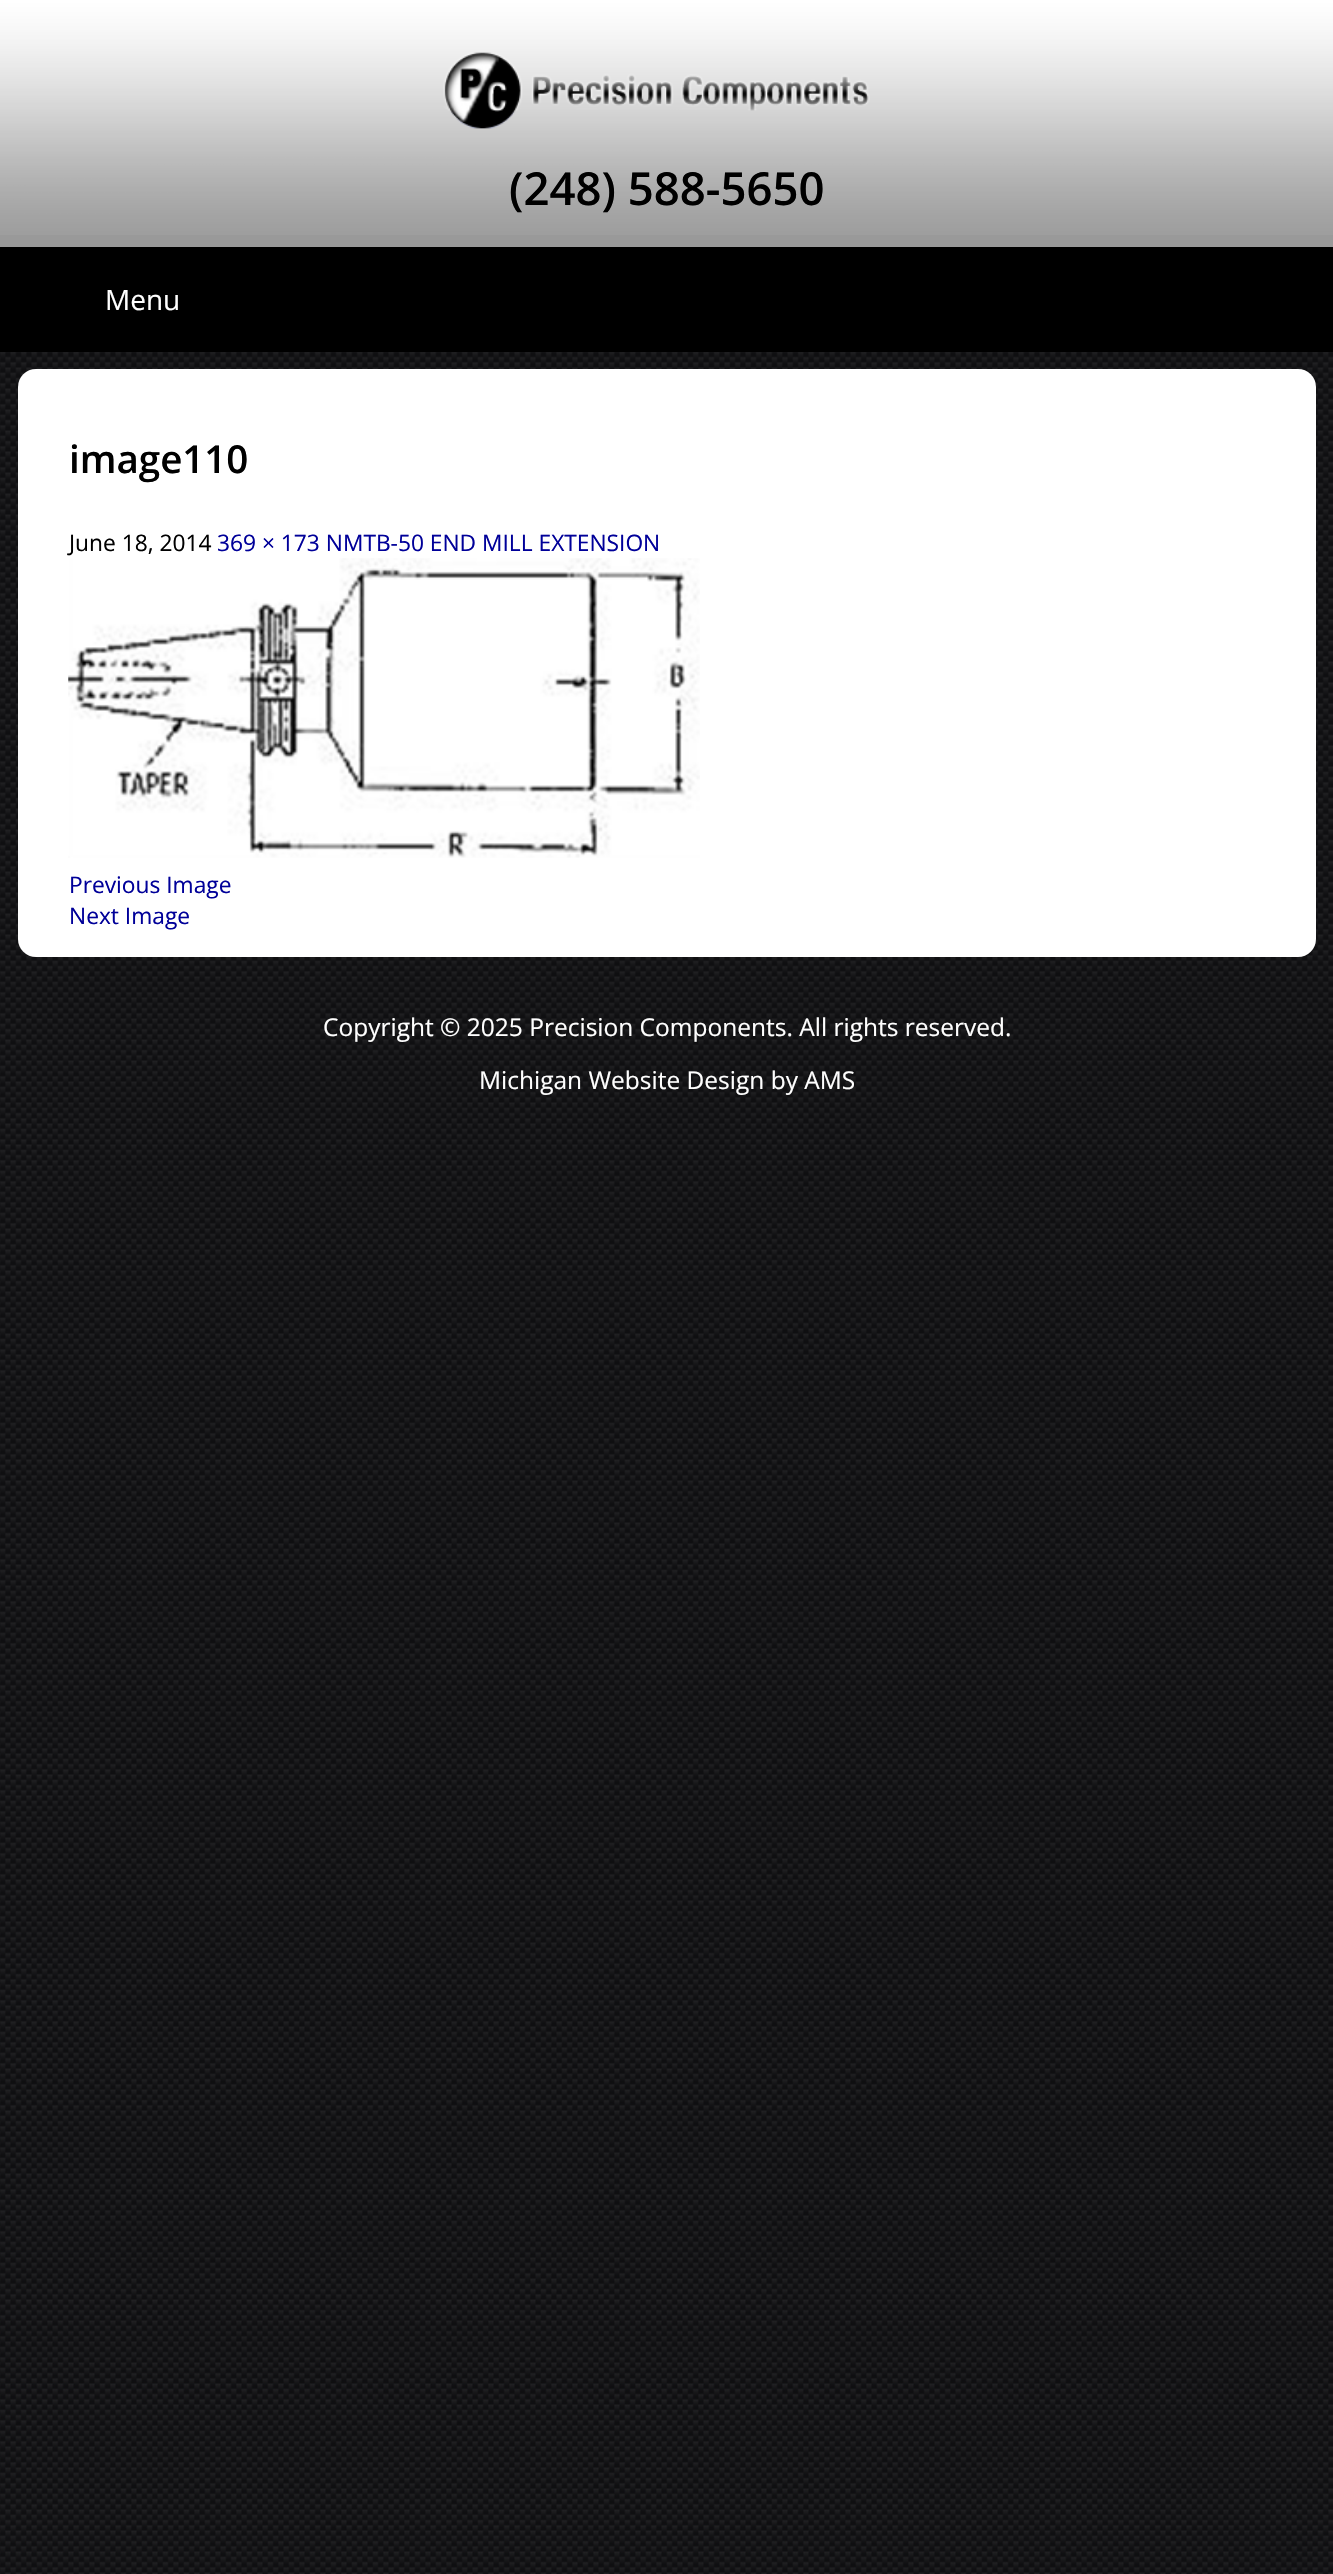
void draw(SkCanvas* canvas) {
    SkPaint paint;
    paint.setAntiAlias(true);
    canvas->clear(0xFFFFFFFF);
    canvas->drawImageRect(SkImages::DeferredFromEncodedData(SkData::MakeFromFileName("img1.png")), SkRect::MakeXYWH(0, 352, 1333, 2222), SkSamplingOptions());
    paint.setColor(0xFF999999);
    canvas->drawRect(SkRect::MakeXYWH(0, 235, 1333, 12), paint);
    canvas->drawImageRect(SkImages::DeferredFromEncodedData(SkData::MakeFromFileName("img2.png")), SkRect::MakeXYWH(0, 0, 1333, 235), SkSamplingOptions());
    canvas->drawImageRect(SkImages::DeferredFromEncodedData(SkData::MakeFromFileName("img3.png")), SkRect::MakeXYWH(443, 52, 427, 77), SkSamplingOptions());
    SkFont font1(fontMgr->matchFamilyStyle("Open Sans", SkFontStyle(600, SkFontStyle::kNormal_Width, SkFontStyle::kUpright_Slant)), 45.5f);
    font1.setSubpixel(true);
    paint.setColor(0xFF000000);
    canvas->drawString("(248) 588-5650", 509, 205, font1, paint);
    canvas->drawRect(SkRect::MakeXYWH(0, 247, 1333, 105), paint);
    SkFont font2(fontMgr->matchFamilyStyle("Open Sans", SkFontStyle::Normal()), 28);
    font2.setSubpixel(true);
    paint.setColor(0xFFFFFFFF);
    canvas->drawString("Menu", 105, 310, font2, paint);
    canvas->drawRoundRect(SkRect::MakeXYWH(18, 369, 1298, 588), 18, 18, paint);
    SkFont font3(fontMgr->matchFamilyStyle("Open Sans", SkFontStyle(600, SkFontStyle::kNormal_Width, SkFontStyle::kUpright_Slant)), 38.5f);
    font3.setSubpixel(true);
    paint.setColor(0xFF000000);
    canvas->drawString("image110", 69, 473, font3, paint);
    SkFont font4(fontMgr->matchFamilyStyle("Open Sans", SkFontStyle::Normal()), 22.75f);
    font4.setSubpixel(true);
    canvas->drawString("June 18, 2014", 69, 551, font4, paint);
    paint.setColor(0xFF000099);
    canvas->drawString("369 × 173 NMTB-50 END MILL EXTENSION", 217, 551, font4, paint);
    canvas->drawImageRect(SkImages::DeferredFromEncodedData(SkData::MakeFromFileName("img4.png")), SkRect::MakeXYWH(68, 558, 632, 300), SkSamplingOptions());
    canvas->drawString("Previous Image", 69, 893, font4, paint);
    canvas->drawString("Next Image", 69, 924, font4, paint);
    SkFont font5(fontMgr->matchFamilyStyle("Open Sans", SkFontStyle::Normal()), 24.5f);
    font5.setSubpixel(true);
    paint.setColor(0xFFFFFFFF);
    canvas->drawString("Copyright © 2025 Precision Components. All rights reserved.", 323, 1036, font5, paint);
    canvas->drawString("Michigan Website Design by AMS", 479, 1089, font5, paint);
}
